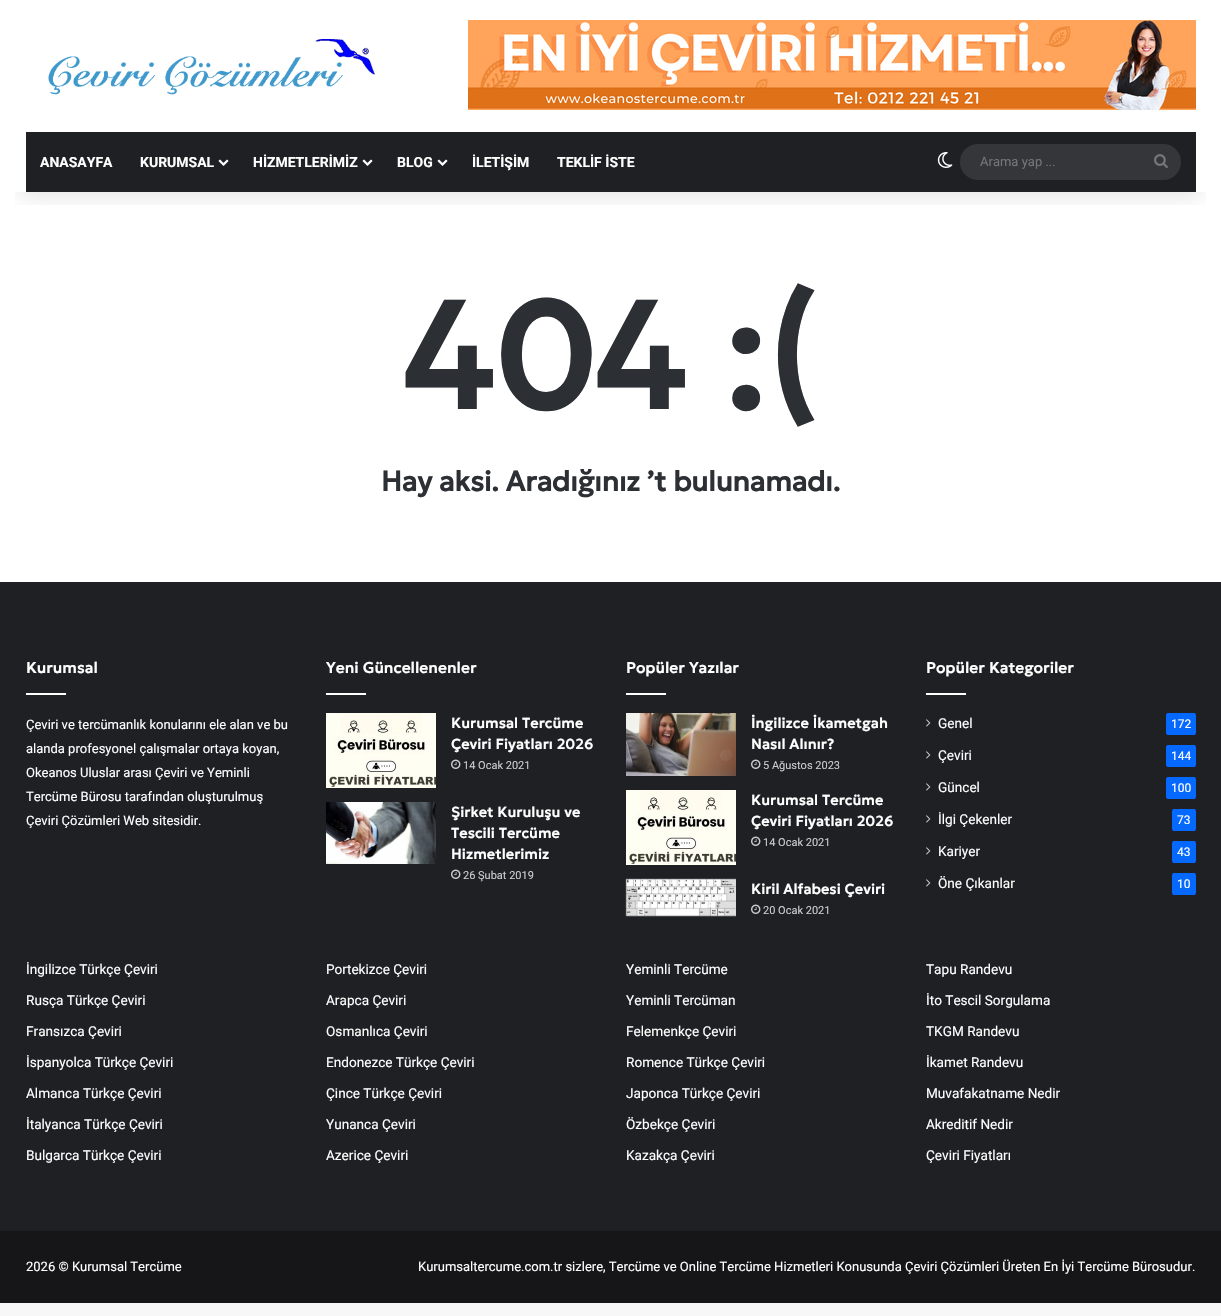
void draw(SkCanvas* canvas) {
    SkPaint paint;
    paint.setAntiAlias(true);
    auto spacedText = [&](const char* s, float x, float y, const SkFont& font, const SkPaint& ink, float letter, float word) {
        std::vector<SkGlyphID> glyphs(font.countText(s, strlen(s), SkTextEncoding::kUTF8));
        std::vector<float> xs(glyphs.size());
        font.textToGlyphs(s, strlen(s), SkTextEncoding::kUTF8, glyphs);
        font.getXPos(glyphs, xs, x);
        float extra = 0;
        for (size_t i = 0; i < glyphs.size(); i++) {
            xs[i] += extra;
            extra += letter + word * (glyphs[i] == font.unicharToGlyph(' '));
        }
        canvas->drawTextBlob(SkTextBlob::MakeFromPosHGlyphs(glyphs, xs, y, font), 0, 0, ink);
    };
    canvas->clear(0xFFF7F7F7);
    paint.setColor(0xFFFFFFFF);
    canvas->drawRect(SkRect::MakeXYWH(0, 0, 1221, 582), paint);
    canvas->save();
    canvas->clipRect(SkRect::MakeXYWH(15, 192, 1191, 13));
    paint.setColor(0x1A000000);
    paint.setMaskFilter(SkMaskFilter::MakeBlur(kNormal_SkBlurStyle, 10));
    canvas->drawRect(SkRect::MakeXYWH(20, 45, 1181, 152), paint);
    paint.setMaskFilter(nullptr);
    canvas->restore();
    canvas->drawImageRect(SkImages::DeferredFromEncodedData(SkData::MakeFromFileName("img1.png")), SkRect::MakeXYWH(48, 39, 327, 56), SkSamplingOptions());
    canvas->drawImageRect(SkImages::DeferredFromEncodedData(SkData::MakeFromFileName("img2.png")), SkRect::MakeXYWH(468, 20, 728, 90), SkSamplingOptions());
    paint.setColor(0xFF1F2024);
    canvas->drawRect(SkRect::MakeXYWH(26, 132, 1170, 60), paint);
    SkFont font1(fontMgr->matchFamilyStyle("Roboto", SkFontStyle::Bold()), 14);
    font1.setSubpixel(true);
    paint.setColor(0xFFFFFFFF);
    canvas->drawString("ANASAYFA", 40, 167, font1, paint);
    canvas->drawString("KURUMSAL", 140, 167, font1, paint);
    canvas->drawImageRect(SkImages::DeferredFromEncodedData(SkData::MakeFromFileName("img3.png")), SkRect::MakeXYWH(218, 159, 11, 7), SkSamplingOptions());
    canvas->drawString("HİZMETLERİMİZ", 253, 167, font1, paint);
    canvas->drawImageRect(SkImages::DeferredFromEncodedData(SkData::MakeFromFileName("img3.png")), SkRect::MakeXYWH(362, 159, 11, 7), SkSamplingOptions());
    canvas->drawString("BLOG", 397, 167, font1, paint);
    canvas->drawImageRect(SkImages::DeferredFromEncodedData(SkData::MakeFromFileName("img3.png")), SkRect::MakeXYWH(437, 159, 11, 7), SkSamplingOptions());
    canvas->drawString("İLETİŞİM", 472, 167, font1, paint);
    canvas->drawString("TEKLİF İSTE", 557, 167, font1, paint);
    canvas->drawImageRect(SkImages::DeferredFromEncodedData(SkData::MakeFromFileName("img4.png")), SkRect::MakeXYWH(937, 152, 16, 16), SkSamplingOptions());
    paint.setColor(0xFF35363A);
    canvas->drawRoundRect(SkRect::MakeXYWH(960, 144, 221, 36), 18, 18, paint);
    SkFont font2(fontMgr->matchFamilyStyle("Roboto", SkFontStyle::Normal()), 13);
    font2.setSubpixel(true);
    paint.setColor(0xFF757575);
    canvas->drawString("Arama yap ...", 980, 166, font2, paint);
    canvas->drawImageRect(SkImages::DeferredFromEncodedData(SkData::MakeFromFileName("img5.png")), SkRect::MakeXYWH(1154, 154, 14, 14), SkSamplingOptions());
    SkFont font3(fontMgr->matchFamilyStyle("Geologica", SkFontStyle::Bold()), 150);
    font3.setSubpixel(true);
    paint.setColor(0xFF2C2F34);
    canvas->drawString("404 :(", 403, 409, font3, paint);
    SkFont font4(fontMgr->matchFamilyStyle("Geologica", SkFontStyle::Bold()), 28);
    font4.setSubpixel(true);
    canvas->drawString("Hay aksi. Aradığınız ’t bulunamadı.", 381, 491, font4, paint);
    paint.setColor(0xFF1F2024);
    canvas->drawRect(SkRect::MakeXYWH(0, 582, 1221, 649), paint);
    SkFont font5(fontMgr->matchFamilyStyle("Geologica", SkFontStyle::Bold()), 15);
    font5.setSubpixel(true);
    paint.setColor(0xFFFFFFFF);
    spacedText("Kurumsal", 26, 673, font5, paint, 0.4f, 0);
    canvas->drawRect(SkRect::MakeXYWH(26, 693, 40, 2), paint);
    canvas->drawString("Çeviri ve tercümanlık konularını ele alan ve bu", 26, 729, font2, paint);
    canvas->drawString("alanda profesyonel çalışmalar ortaya koyan,", 26, 753, font2, paint);
    canvas->drawString("Okeanos Uluslar arası Çeviri ve Yeminli", 26, 777, font2, paint);
    canvas->drawString("Tercüme Bürosu tarafından oluşturulmuş", 26, 801, font2, paint);
    canvas->drawString("Çeviri Çözümleri Web sitesidir.", 26, 825, font2, paint);
    spacedText("Yeni Güncellenenler", 326, 673, font5, paint, 0.4f, 0);
    canvas->drawRect(SkRect::MakeXYWH(326, 693, 40, 2), paint);
    canvas->drawImageRect(SkImages::DeferredFromEncodedData(SkData::MakeFromFileName("img6.png")), SkRect::MakeXYWH(326, 713, 110, 75), SkSamplingOptions());
    SkFont font6(fontMgr->matchFamilyStyle("Geologica", SkFontStyle::Bold()), 14);
    font6.setSubpixel(true);
    spacedText("Kurumsal Tercüme", 451, 728, font6, paint, 0.4f, 0);
    spacedText("Çeviri Fiyatları 2026", 451, 749, font6, paint, 0.4f, 0);
    canvas->drawImageRect(SkImages::DeferredFromEncodedData(SkData::MakeFromFileName("img7.png")), SkRect::MakeXYWH(451, 759, 10, 10), SkSamplingOptions());
    SkFont font7(fontMgr->matchFamilyStyle("Roboto", SkFontStyle::Normal()), 11);
    font7.setSubpixel(true);
    paint.setColor(0xFFCCCCCC);
    canvas->drawString("14 Ocak 2021", 463, 769, font7, paint);
    canvas->drawImageRect(SkImages::DeferredFromEncodedData(SkData::MakeFromFileName("img8.png")), SkRect::MakeXYWH(326, 802, 110, 62), SkSamplingOptions());
    paint.setColor(0xFFFFFFFF);
    spacedText("Şirket Kuruluşu ve", 451, 817, font6, paint, 0.4f, 0);
    spacedText("Tescili Tercüme", 451, 838, font6, paint, 0.4f, 0);
    spacedText("Hizmetlerimiz", 451, 859, font6, paint, 0.4f, 0);
    canvas->drawImageRect(SkImages::DeferredFromEncodedData(SkData::MakeFromFileName("img7.png")), SkRect::MakeXYWH(451, 869, 10, 10), SkSamplingOptions());
    paint.setColor(0xFFCCCCCC);
    canvas->drawString("26 Şubat 2019", 463, 879, font7, paint);
    paint.setColor(0xFFFFFFFF);
    spacedText("Popüler Yazılar", 626, 673, font5, paint, 0.4f, 0);
    canvas->drawRect(SkRect::MakeXYWH(626, 693, 40, 2), paint);
    canvas->drawImageRect(SkImages::DeferredFromEncodedData(SkData::MakeFromFileName("img9.png")), SkRect::MakeXYWH(626, 713, 110, 63), SkSamplingOptions());
    spacedText("İngilizce İkametgah", 751, 728, font6, paint, 0.4f, 0);
    spacedText("Nasıl Alınır?", 751, 749, font6, paint, 0.4f, 0);
    canvas->drawImageRect(SkImages::DeferredFromEncodedData(SkData::MakeFromFileName("img7.png")), SkRect::MakeXYWH(751, 759, 10, 10), SkSamplingOptions());
    paint.setColor(0xFFCCCCCC);
    canvas->drawString("5 Ağustos 2023", 763, 769, font7, paint);
    canvas->drawImageRect(SkImages::DeferredFromEncodedData(SkData::MakeFromFileName("img6.png")), SkRect::MakeXYWH(626, 790, 110, 75), SkSamplingOptions());
    paint.setColor(0xFFFFFFFF);
    spacedText("Kurumsal Tercüme", 751, 805, font6, paint, 0.4f, 0);
    spacedText("Çeviri Fiyatları 2026", 751, 826, font6, paint, 0.4f, 0);
    canvas->drawImageRect(SkImages::DeferredFromEncodedData(SkData::MakeFromFileName("img7.png")), SkRect::MakeXYWH(751, 836, 10, 10), SkSamplingOptions());
    paint.setColor(0xFFCCCCCC);
    canvas->drawString("14 Ocak 2021", 763, 846, font7, paint);
    canvas->drawImageRect(SkImages::DeferredFromEncodedData(SkData::MakeFromFileName("img10.png")), SkRect::MakeXYWH(625, 878, 111, 39), SkSamplingOptions());
    paint.setColor(0xFFFFFFFF);
    spacedText("Kiril Alfabesi Çeviri", 751, 894, font6, paint, 0.4f, 0);
    canvas->drawImageRect(SkImages::DeferredFromEncodedData(SkData::MakeFromFileName("img7.png")), SkRect::MakeXYWH(751, 904, 10, 10), SkSamplingOptions());
    paint.setColor(0xFFCCCCCC);
    canvas->drawString("20 Ocak 2021", 763, 914, font7, paint);
    paint.setColor(0xFFFFFFFF);
    spacedText("Popüler Kategoriler", 926, 673, font5, paint, 0.4f, 0);
    canvas->drawRect(SkRect::MakeXYWH(926, 693, 40, 2), paint);
    canvas->drawImageRect(SkImages::DeferredFromEncodedData(SkData::MakeFromFileName("img11.png")), SkRect::MakeXYWH(926, 719, 5, 8), SkSamplingOptions());
    SkFont font8(fontMgr->matchFamilyStyle("Roboto", SkFontStyle::Normal()), 13.6f);
    font8.setSubpixel(true);
    canvas->drawString("Genel", 938, 728, font8, paint);
    paint.setColor(0xFF0669FF);
    canvas->drawRoundRect(SkRect::MakeXYWH(1166, 713, 30, 22), 2, 2, paint);
    SkFont font9(fontMgr->matchFamilyStyle("Roboto", SkFontStyle::Normal()), 12);
    font9.setSubpixel(true);
    paint.setColor(0xFFFFFFFF);
    canvas->drawString("172", 1171, 728, font9, paint);
    canvas->drawImageRect(SkImages::DeferredFromEncodedData(SkData::MakeFromFileName("img11.png")), SkRect::MakeXYWH(926, 751, 5, 8), SkSamplingOptions());
    canvas->drawString("Çeviri", 938, 760, font8, paint);
    paint.setColor(0xFF0669FF);
    canvas->drawRoundRect(SkRect::MakeXYWH(1166, 745, 30, 22), 2, 2, paint);
    paint.setColor(0xFFFFFFFF);
    canvas->drawString("144", 1171, 760, font9, paint);
    canvas->drawImageRect(SkImages::DeferredFromEncodedData(SkData::MakeFromFileName("img11.png")), SkRect::MakeXYWH(926, 783, 5, 8), SkSamplingOptions());
    canvas->drawString("Güncel", 938, 792, font8, paint);
    paint.setColor(0xFF0669FF);
    canvas->drawRoundRect(SkRect::MakeXYWH(1166, 777, 30, 22), 2, 2, paint);
    paint.setColor(0xFFFFFFFF);
    canvas->drawString("100", 1171, 792, font9, paint);
    canvas->drawImageRect(SkImages::DeferredFromEncodedData(SkData::MakeFromFileName("img11.png")), SkRect::MakeXYWH(926, 815, 5, 8), SkSamplingOptions());
    canvas->drawString("İlgi Çekenler", 938, 824, font8, paint);
    paint.setColor(0xFF0669FF);
    canvas->drawRoundRect(SkRect::MakeXYWH(1172, 809, 24, 22), 2, 2, paint);
    paint.setColor(0xFFFFFFFF);
    canvas->drawString("73", 1177, 824, font9, paint);
    canvas->drawImageRect(SkImages::DeferredFromEncodedData(SkData::MakeFromFileName("img11.png")), SkRect::MakeXYWH(926, 847, 5, 8), SkSamplingOptions());
    canvas->drawString("Kariyer", 938, 856, font8, paint);
    paint.setColor(0xFF0669FF);
    canvas->drawRoundRect(SkRect::MakeXYWH(1172, 841, 24, 22), 2, 2, paint);
    paint.setColor(0xFFFFFFFF);
    canvas->drawString("43", 1177, 856, font9, paint);
    canvas->drawImageRect(SkImages::DeferredFromEncodedData(SkData::MakeFromFileName("img11.png")), SkRect::MakeXYWH(926, 879, 5, 8), SkSamplingOptions());
    canvas->drawString("Öne Çıkanlar", 938, 888, font8, paint);
    paint.setColor(0xFF0669FF);
    canvas->drawRoundRect(SkRect::MakeXYWH(1172, 873, 24, 22), 2, 2, paint);
    paint.setColor(0xFFFFFFFF);
    canvas->drawString("10", 1177, 888, font9, paint);
    canvas->drawString("İngilizce Türkçe Çeviri", 26, 974, font8, paint);
    canvas->drawString("Rusça Türkçe Çeviri", 26, 1005, font8, paint);
    canvas->drawString("Fransızca Çeviri", 26, 1036, font8, paint);
    canvas->drawString("İspanyolca Türkçe Çeviri", 26, 1067, font8, paint);
    canvas->drawString("Almanca Türkçe Çeviri", 26, 1098, font8, paint);
    canvas->drawString("İtalyanca Türkçe Çeviri", 26, 1129, font8, paint);
    canvas->drawString("Bulgarca Türkçe Çeviri", 26, 1160, font8, paint);
    canvas->drawString("Portekizce Çeviri", 326, 974, font8, paint);
    canvas->drawString("Arapca Çeviri", 326, 1005, font8, paint);
    canvas->drawString("Osmanlıca Çeviri", 326, 1036, font8, paint);
    canvas->drawString("Endonezce Türkçe Çeviri", 326, 1067, font8, paint);
    canvas->drawString("Çince Türkçe Çeviri", 326, 1098, font8, paint);
    canvas->drawString("Yunanca Çeviri", 326, 1129, font8, paint);
    canvas->drawString("Azerice Çeviri", 326, 1160, font8, paint);
    canvas->drawString("Yeminli Tercüme", 626, 974, font8, paint);
    canvas->drawString("Yeminli Tercüman", 626, 1005, font8, paint);
    canvas->drawString("Felemenkçe Çeviri", 626, 1036, font8, paint);
    canvas->drawString("Romence Türkçe Çeviri", 626, 1067, font8, paint);
    canvas->drawString("Japonca Türkçe Çeviri", 626, 1098, font8, paint);
    canvas->drawString("Özbekçe Çeviri", 626, 1129, font8, paint);
    canvas->drawString("Kazakça Çeviri", 626, 1160, font8, paint);
    canvas->drawString("Tapu Randevu", 926, 974, font8, paint);
    canvas->drawString("İto Tescil Sorgulama", 926, 1005, font8, paint);
    canvas->drawString("TKGM Randevu", 926, 1036, font8, paint);
    canvas->drawString("İkamet Randevu", 926, 1067, font8, paint);
    canvas->drawString("Muvafakatname Nedir", 926, 1098, font8, paint);
    canvas->drawString("Akreditif Nedir", 926, 1129, font8, paint);
    canvas->drawString("Çeviri Fiyatları", 926, 1160, font8, paint);
    paint.setColor(0xFF161619);
    canvas->drawRect(SkRect::MakeXYWH(0, 1231, 1221, 72), paint);
    paint.setColor(0xFFFFFFFF);
    canvas->drawString("2026 © Kurumsal Tercüme", 26, 1271, font2, paint);
    canvas->drawString("Kurumsaltercume.com.tr sizlere, Tercüme ve Online Tercüme Hizmetleri Konusunda Çeviri Çözümleri Üreten En İyi Tercüme Bürosudur.", 418, 1271, font2, paint);
}
